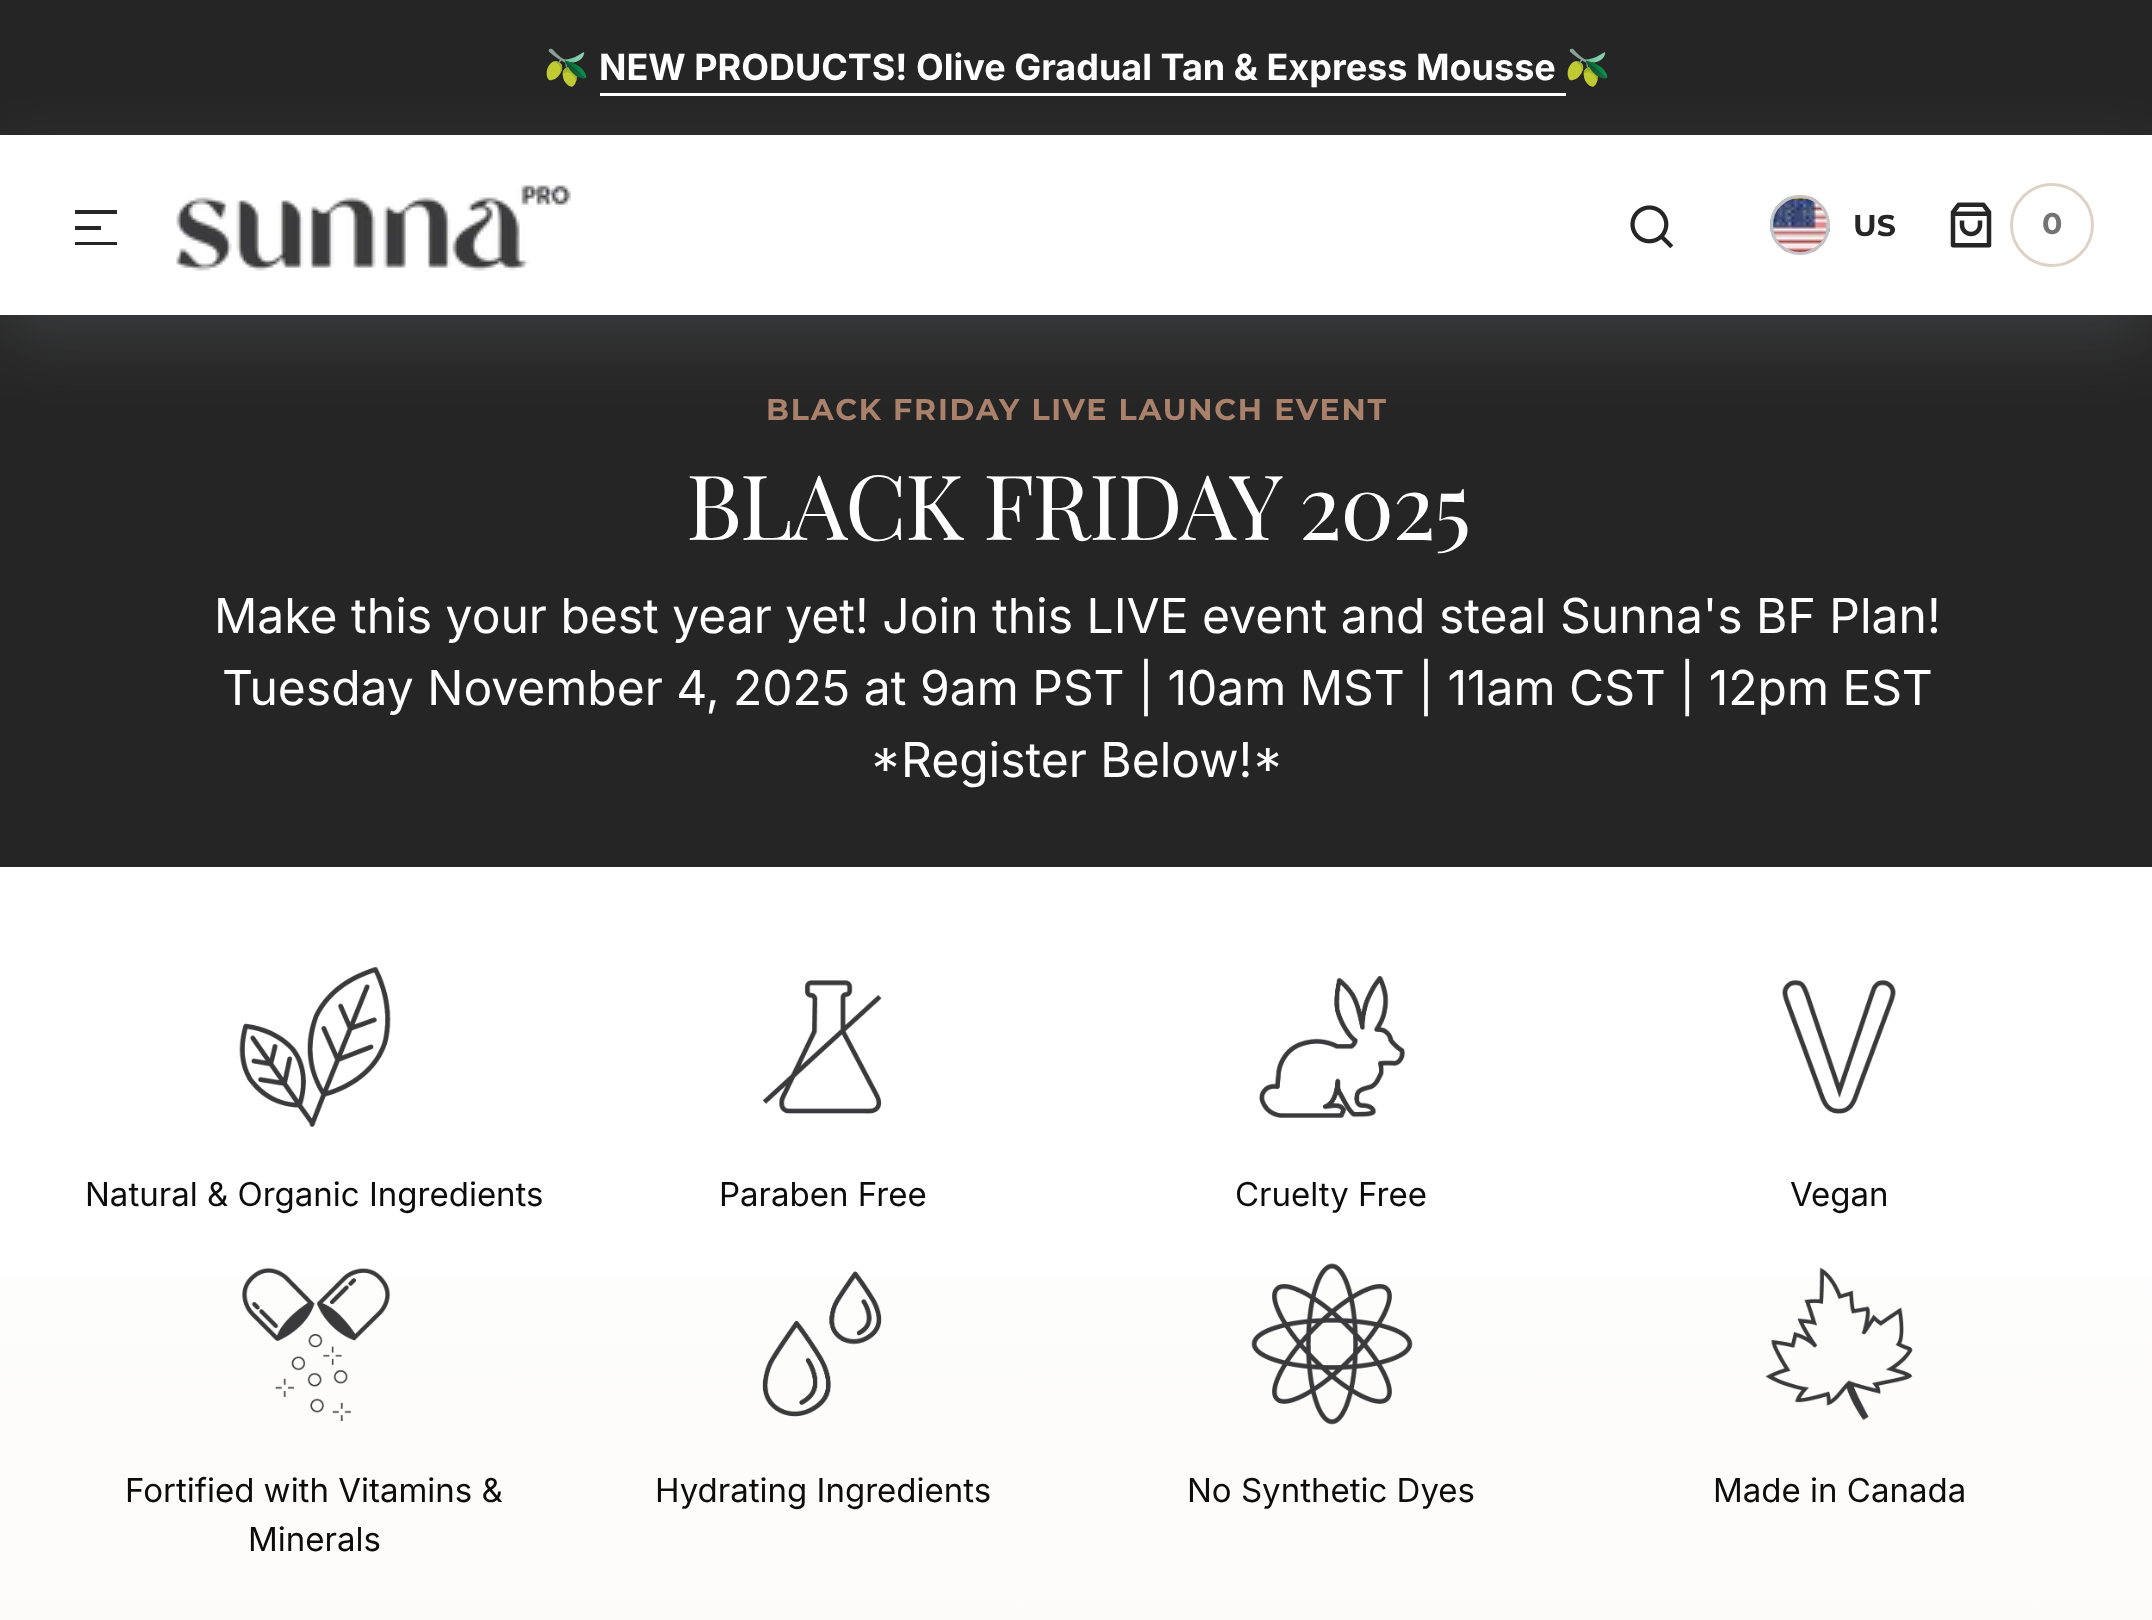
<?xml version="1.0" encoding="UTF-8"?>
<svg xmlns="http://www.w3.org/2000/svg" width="2152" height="1620">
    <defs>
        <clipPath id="clip1"><path d="M 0 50 H 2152 V 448 H 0 Z M 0 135 H 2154 V 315 H 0 Z" clip-rule="evenodd"/></clipPath>
        <filter id="blur1" x="-50%" y="-200%" width="200%" height="500%"><feGaussianBlur stdDeviation="36"/></filter>
        <linearGradient id="g1" gradientUnits="userSpaceOnUse" x1="1077" y1="867" x2="1077" y2="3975"><stop offset="0" stop-color="#FFFFFF"/><stop offset="1" stop-color="#F4F0EC"/></linearGradient>
    </defs>
    <rect width="100%" height="100%" fill="#FFFFFF"/>
    <rect x="0" y="0" width="2152" height="135" fill="#252525"/>
    <text x="544" y="80" font-family="Noto Color Emoji" font-size="36" fill="#FFFFFF">🫒</text>
    <text x="599" y="80" font-family="Inter" font-size="36" font-weight="700" fill="#FFFFFF">NEW PRODUCTS! Olive Gradual Tan &amp; Express Mousse</text>
    <rect x="600" y="93" width="966" height="3" fill="#FFFFFF"/>
    <text x="1565" y="80" font-family="Noto Color Emoji" font-size="36" fill="#FFFFFF">🫒</text>
    <rect x="0" y="315" width="2152" height="552" fill="#252525"/>
    <g clip-path="url(#clip1)">
        <rect x="0" y="159" width="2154" height="180" fill="#959DA5" fill-opacity="0.2" filter="url(#blur1)"/>
    </g>
    <rect x="75" y="210" width="42" height="4" fill="#262626"/>
    <rect x="75" y="226" width="26" height="4" fill="#262626"/>
    <rect x="75" y="242" width="42" height="3" fill="#262626"/>
    <image x="176" y="185" width="395" height="86" href="img_01.png"/>
    <image x="1630" y="205" width="44" height="44" href="img_02.png"/>
    <image x="1770" y="195" width="60" height="57" href="img_03.png"/>
    <circle cx="1800" cy="225" r="28.5" fill="none" stroke="#C4C4C4" stroke-width="3"/>
    <text x="1853" y="236" font-family="Montserrat" font-size="30" font-weight="700" fill="#262626">US</text>
    <image x="1950" y="202" width="42" height="46" href="img_04.png"/>
    <circle cx="2052" cy="225" r="40.5" fill="none" stroke="#DED2C7" stroke-width="3"/>
    <text x="2042" y="234" font-family="Montserrat" font-size="30" font-weight="700" fill="#747474">0</text>
    <text x="766" y="420" font-family="Montserrat" font-size="30" font-weight="700" letter-spacing="1.8" fill="#AA816A">BLACK FRIDAY LIVE LAUNCH EVENT</text>
    <text x="686" y="540" font-family="Playfair Display" font-size="90" letter-spacing="-1.75" fill="#FFFFFF">BLACK FRIDAY 2025</text>
    <text x="214" y="633" font-family="Inter" font-size="48" fill="#FFFFFF">Make this your best year yet! Join this LIVE event and steal Sunna's BF Plan!</text>
    <text x="222" y="705" font-family="Inter" font-size="48" fill="#FFFFFF">Tuesday November 4, 2025 at 9am PST | 10am MST | 11am CST | 12pm EST</text>
    <text x="870" y="777" font-family="Inter" font-size="48" fill="#FFFFFF">*Register Below!*</text>
    <rect x="0" y="1276" width="2152" height="344" fill="url(#g1)"/>
    <image x="239" y="966" width="152" height="161" href="img_05.png"/>
    <text x="85" y="1206" font-family="Inter" font-size="33" fill="#0C0C0C">Natural &amp; Organic Ingredients</text>
    <image x="762" y="980" width="120" height="134" href="img_06.png"/>
    <text x="719" y="1206" font-family="Inter" font-size="33" fill="#0C0C0C">Paraben Free</text>
    <image x="1259" y="976" width="146" height="142" href="img_07.png"/>
    <text x="1235" y="1206" font-family="Inter" font-size="33" fill="#0C0C0C">Cruelty Free</text>
    <image x="1782" y="980" width="114" height="134" href="img_08.png"/>
    <text x="1790" y="1206" font-family="Inter" font-size="33" fill="#0C0C0C">Vegan</text>
    <image x="242" y="1267" width="149" height="155" href="img_09.png"/>
    <text x="125" y="1502" font-family="Inter" font-size="33" fill="#0C0C0C">Fortified with Vitamins &amp;</text>
    <text x="248" y="1551" font-family="Inter" font-size="33" fill="#0C0C0C">Minerals</text>
    <image x="762" y="1271" width="120" height="146" href="img_10.png"/>
    <text x="655" y="1502" font-family="Inter" font-size="33" fill="#0C0C0C">Hydrating Ingredients</text>
    <image x="1251" y="1263" width="162" height="162" href="img_11.png"/>
    <text x="1187" y="1502" font-family="Inter" font-size="33" fill="#0C0C0C">No Synthetic Dyes</text>
    <image x="1765" y="1267" width="148" height="154" href="img_12.png"/>
    <text x="1713" y="1502" font-family="Inter" font-size="33" fill="#0C0C0C">Made in Canada</text>
</svg>
